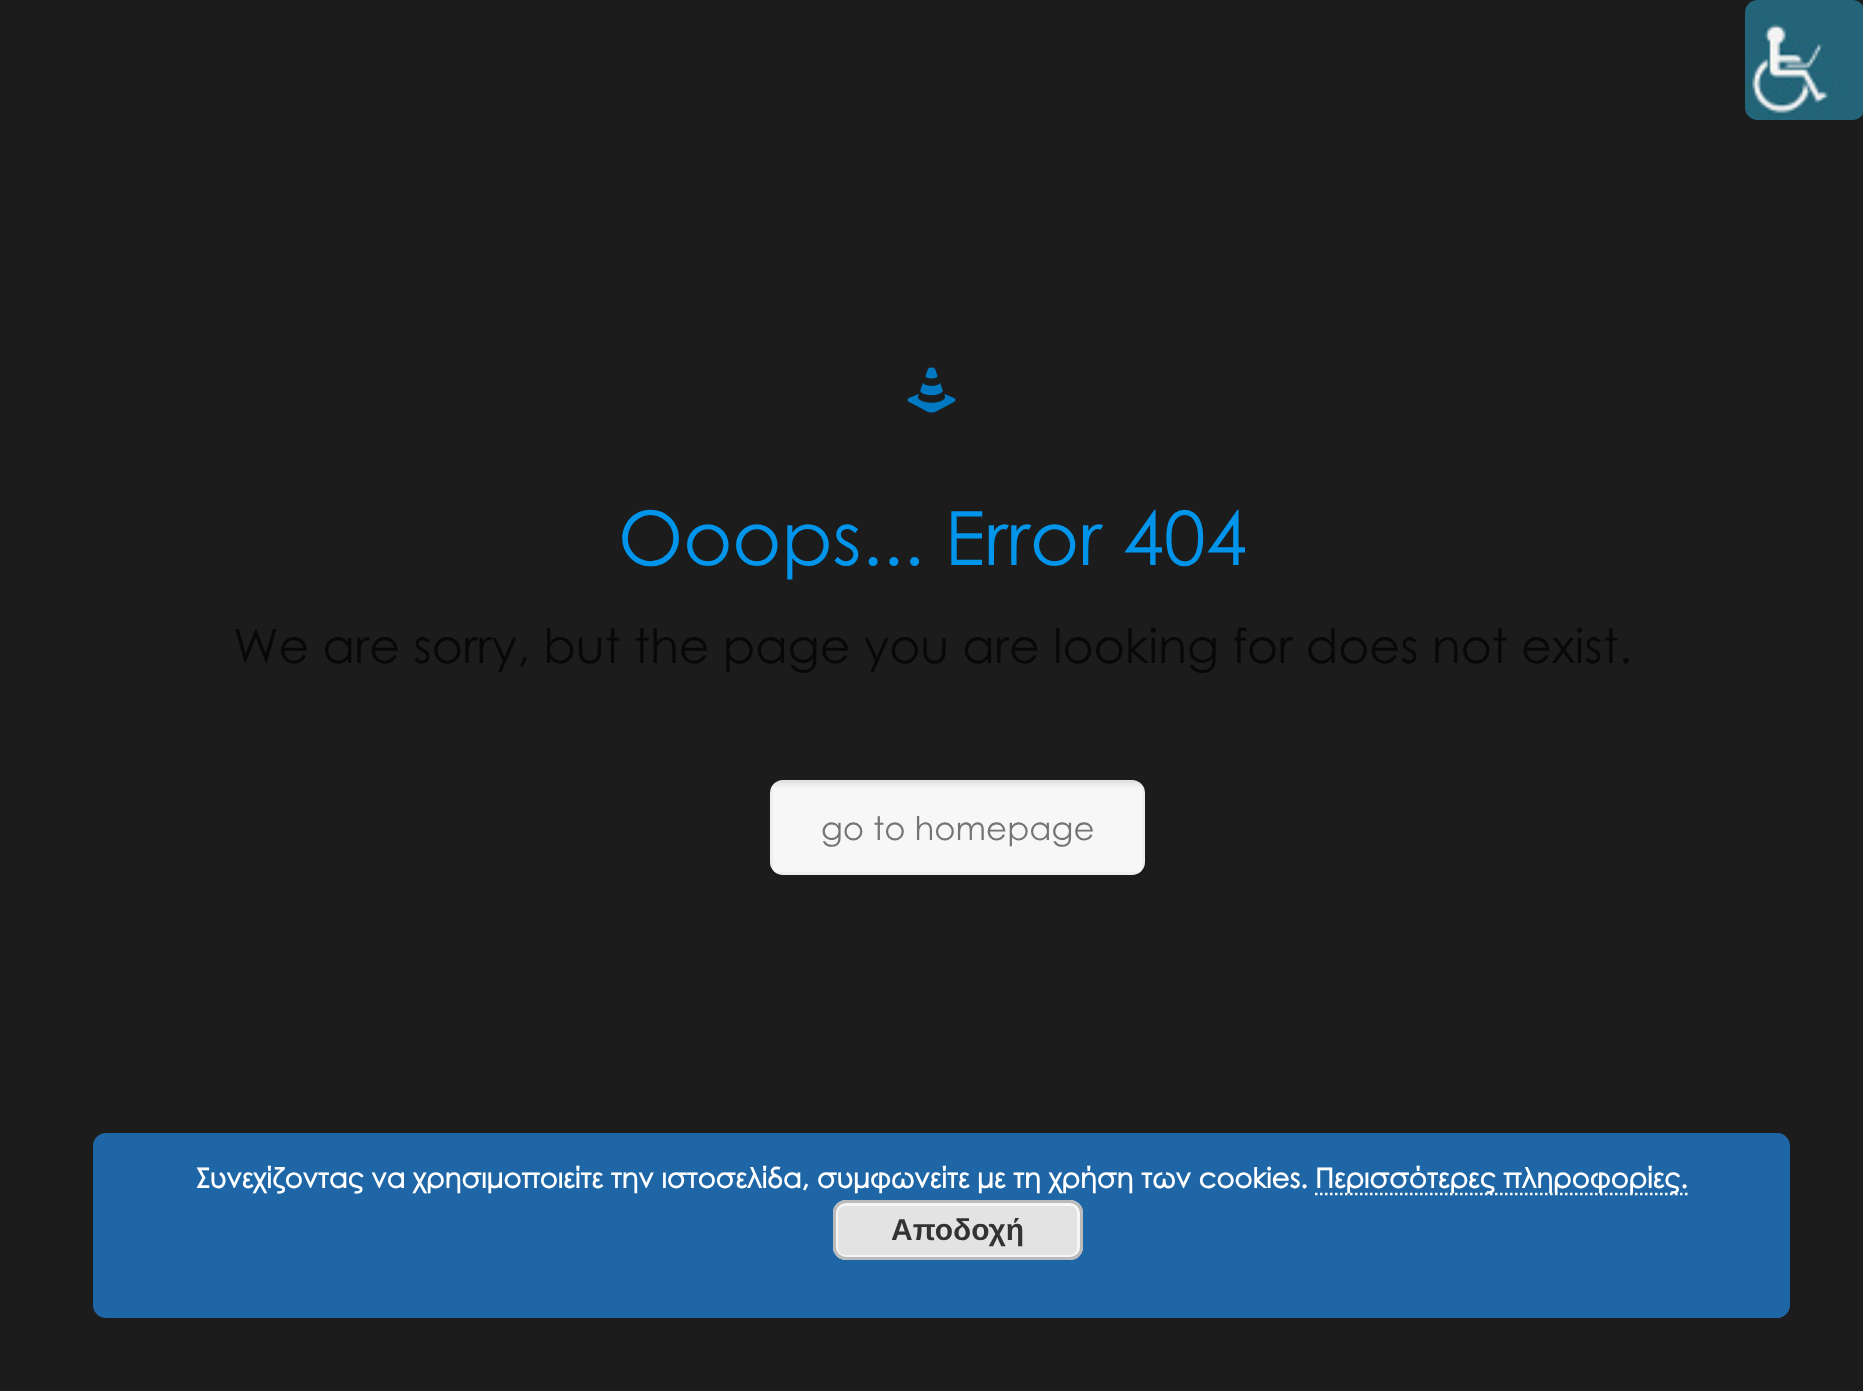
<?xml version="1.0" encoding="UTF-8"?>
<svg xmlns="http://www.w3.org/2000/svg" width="1863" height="1391">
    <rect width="100%" height="100%" fill="#1C1C1C"/>
    <image x="1745" y="0" width="118" height="120" href="img_01.png"/>
    <image x="907" y="367" width="49" height="46" href="img_02.png"/>
    <text x="618" y="565" font-family="Century Gothic" font-size="75" fill="#0095EB">Ooops... Error 404</text>
    <text x="233" y="663" font-family="Century Gothic" font-size="47.5" fill="#080808">We are sorry, but the page you are looking for does not exist.</text>
    <rect x="770" y="780" width="375" height="95" rx="13" fill="#F7F7F7"/>
    <image x="772" y="780" width="371" height="7" href="img_03.png"/>
    <rect x="771.5" y="781.5" width="372" height="92" fill="none" stroke="#000000" stroke-opacity="0.03" stroke-width="3"/>
    <text x="821" y="840" font-family="Century Gothic" font-size="32.5" fill="#747474">go to homepage</text>
    <rect x="93" y="1133" width="1697" height="185" rx="13" fill="#1E66A6"/>
    <text x="196" y="1188" font-family="Century Gothic" font-size="27.5" font-weight="700" fill="#FFFFFF">Συνεχίζοντας να χρησιμοποιείτε την ιστοσελίδα, συμφωνείτε με τη χρήση των cookies.</text>
    <path d="M 1315 1194 H 1687.5" fill="none" stroke="#FFFFFF" stroke-width="2.5" stroke-dasharray="2.5 2.5"/>
    <text x="1315" y="1188" font-family="Century Gothic" font-size="27.5" font-weight="700" fill="#FFFFFF">Περισσότερες πληροφορίες.</text>
    <rect x="833" y="1200" width="250" height="60" rx="13" fill="#E3E3E3"/>
    <rect x="836.5" y="1204.5" width="242" height="52" rx="8.5" fill="none" stroke="#F6F6F6" stroke-width="3"/>
    <rect x="834.5" y="1201.5" width="247" height="57" rx="11.5" fill="none" stroke="#BBBBBB" stroke-width="3"/>
    <text x="891" y="1240" font-family="Liberation Sans" font-size="30" font-weight="700" fill="#333333">Αποδοχή</text>
</svg>
